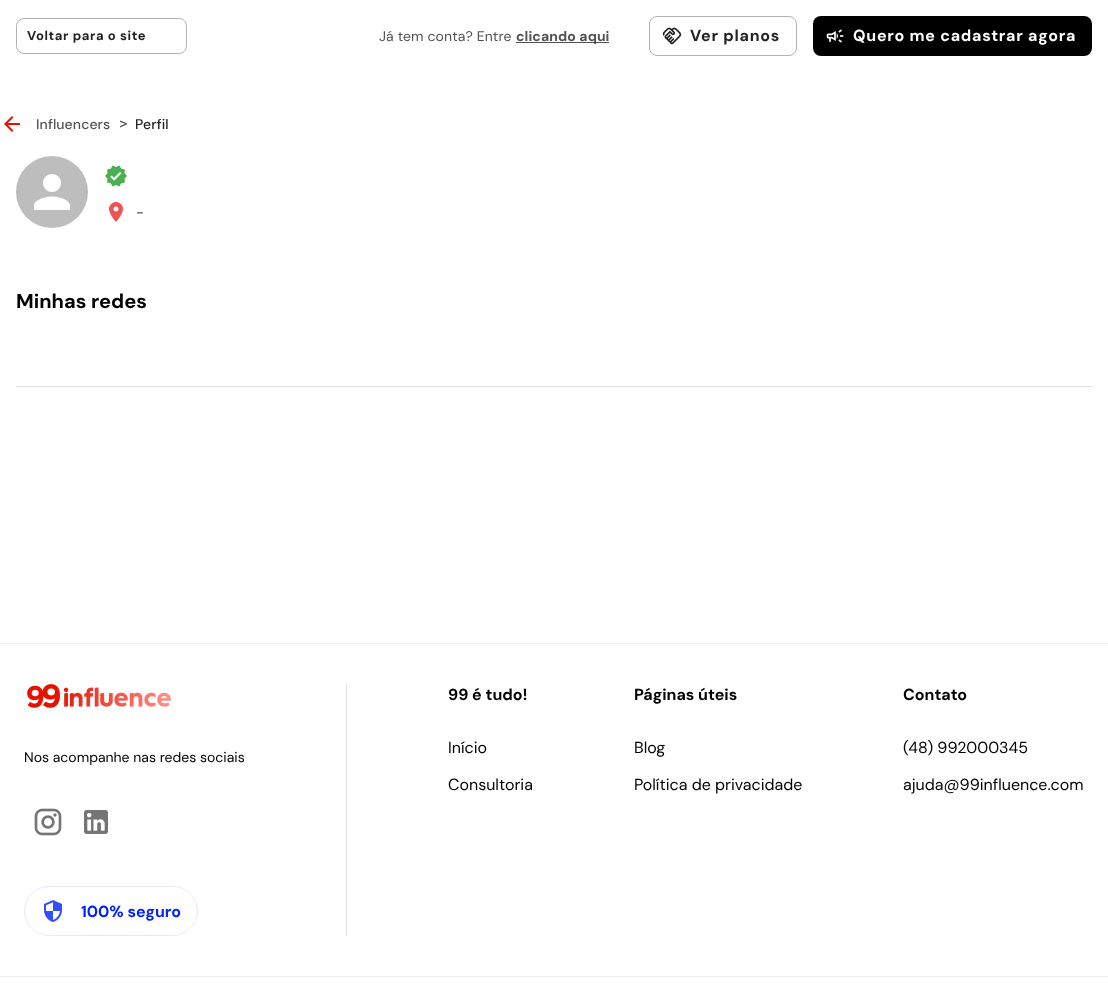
<?xml version="1.0" encoding="UTF-8"?>
<svg xmlns="http://www.w3.org/2000/svg" width="1108" height="1008">
    <rect width="100%" height="100%" fill="#FFFFFF"/>
    <rect x="16.5" y="18.5" width="170" height="35" rx="7.5" fill="none" stroke="#B3B3B3"/>
    <text x="27" y="40" font-family="DM Sans" font-size="13" font-weight="700" letter-spacing="0.6" fill="#212121">Voltar para o site</text>
    <text x="379" y="41" font-family="DM Sans" font-size="14" letter-spacing="0.1" fill="#525252">Já tem conta? Entre</text>
    <rect x="516" y="42" width="93" height="1" fill="#525252"/>
    <text x="516" y="41" font-family="DM Sans" font-size="14" font-weight="700" letter-spacing="0.1" fill="#525252">clicando aqui</text>
    <rect x="649.5" y="16.5" width="147" height="39" rx="7.5" fill="none" stroke="#B3B3B3"/>
    <image x="662" y="27" width="20" height="18" href="img_01.png"/>
    <text x="690" y="41" font-family="DM Sans" font-size="16" font-weight="700" letter-spacing="0.75" fill="#212121">Ver planos</text>
    <rect x="813" y="16" width="279" height="40" rx="8" fill="#000000"/>
    <image x="826" y="29" width="18" height="14" href="img_02.png"/>
    <text x="853" y="41" font-family="DM Sans" font-size="16" font-weight="700" letter-spacing="0.75" fill="#FFFFFF">Quero me cadastrar agora</text>
    <image x="4" y="116" width="16" height="16" href="img_03.png"/>
    <text x="36" y="129" font-family="DM Sans" font-size="14" font-weight="500" letter-spacing="0.1" fill="#525252">Influencers</text>
    <text x="119" y="129" font-family="Roboto" font-size="16" letter-spacing="0.1" fill="#525252">&gt;</text>
    <text x="135" y="129" font-family="DM Sans" font-size="14" font-weight="500" letter-spacing="0.1" fill="#212121">Perfil</text>
    <circle cx="52" cy="192" r="36" fill="#BDBDBD"/>
    <image x="34" y="174" width="36" height="36" href="img_04.png"/>
    <image x="105" y="165" width="22" height="22" href="img_05.png"/>
    <image x="109" y="202" width="14" height="20" href="img_06.png"/>
    <text x="136" y="217" font-family="DM Sans" font-size="14" font-weight="500" fill="#525252">-</text>
    <text x="16" y="308" font-family="DM Sans" font-size="20" font-weight="700" fill="#000000">Minhas redes</text>
    <rect x="16" y="386" width="1076" height="1" fill="#E0E0E0"/>
    <rect x="0" y="643" width="1108" height="1" fill="#EEEEEE"/>
    <rect x="0" y="976" width="1108" height="1" fill="#EEEEEE"/>
    <image x="27" y="684" width="144" height="24" href="img_07.png"/>
    <text x="24" y="762" font-family="DM Sans" font-size="14" fill="#000000">Nos acompanhe nas redes sociais</text>
    <image x="34" y="808" width="28" height="28" href="img_08.png"/>
    <image x="84" y="810" width="24" height="24" href="img_09.png"/>
    <rect x="24.5" y="886.5" width="173" height="49" rx="24.5" fill="none" stroke="#E6E9FF"/>
    <image x="44" y="900" width="18" height="22" href="img_10.png"/>
    <text x="81" y="917" font-family="DM Sans" font-size="16" font-weight="700" fill="#0020FF">100% seguro</text>
    <rect x="346" y="684" width="1" height="252" fill="#E0E0E0"/>
    <text x="448" y="700" font-family="DM Sans" font-size="16" font-weight="700" fill="#000000">99 é tudo!</text>
    <text x="448" y="753" font-family="DM Sans" font-size="16" fill="#000000">Início</text>
    <text x="448" y="790" font-family="DM Sans" font-size="16" fill="#000000">Consultoria</text>
    <text x="634" y="700" font-family="DM Sans" font-size="16" font-weight="700" fill="#000000">Páginas úteis</text>
    <text x="634" y="753" font-family="DM Sans" font-size="16" fill="#000000">Blog</text>
    <text x="634" y="790" font-family="DM Sans" font-size="16" fill="#000000">Política de privacidade</text>
    <text x="903" y="700" font-family="DM Sans" font-size="16" font-weight="700" fill="#000000">Contato</text>
    <text x="903" y="753" font-family="DM Sans" font-size="16" fill="#000000">(48) 992000345</text>
    <text x="903" y="790" font-family="DM Sans" font-size="16" fill="#000000">ajuda@99influence.com</text>
</svg>
